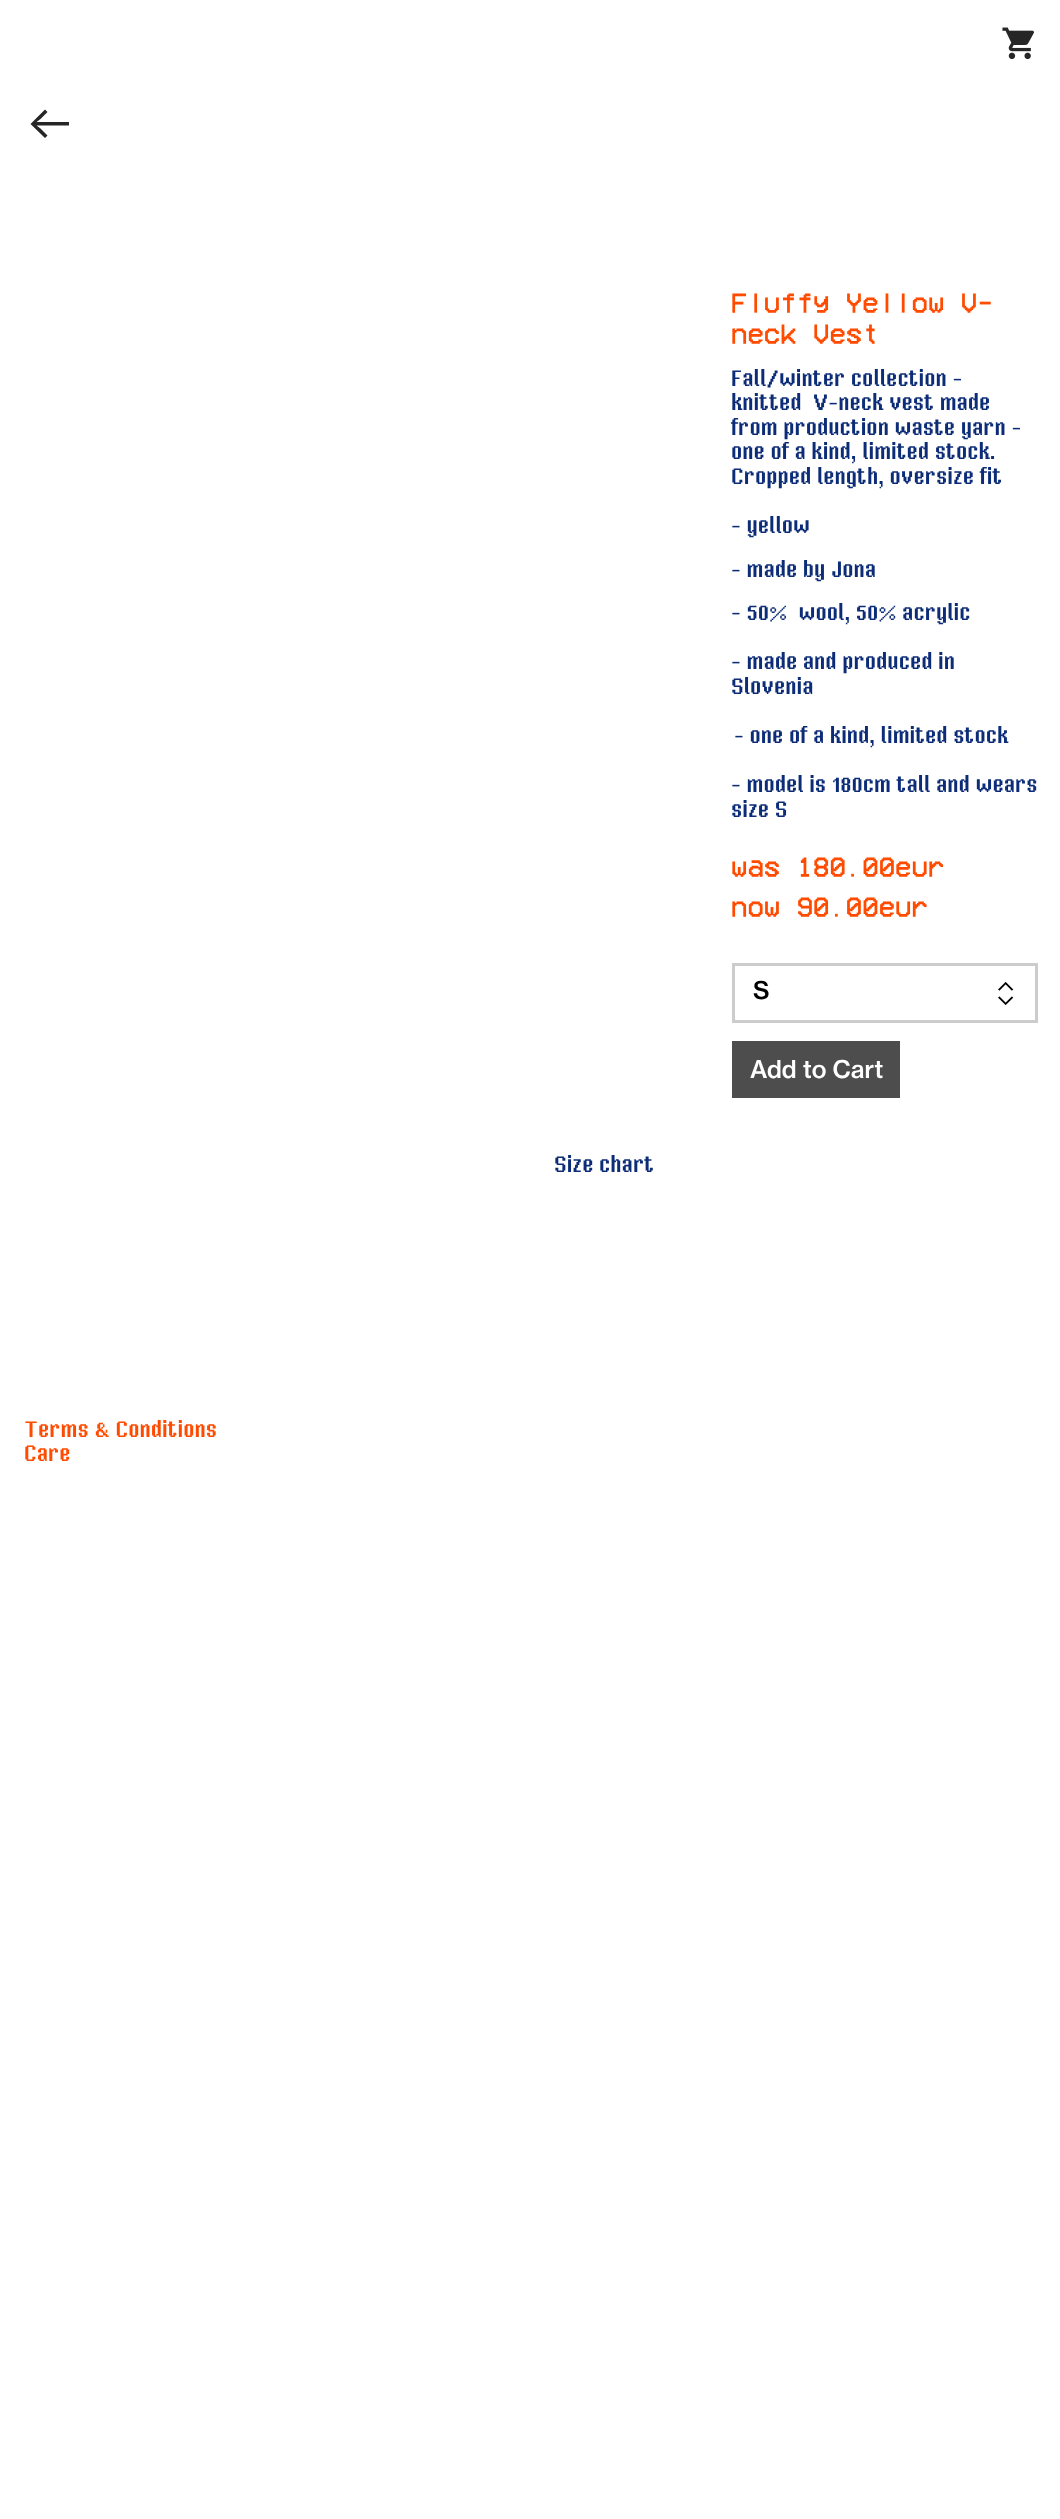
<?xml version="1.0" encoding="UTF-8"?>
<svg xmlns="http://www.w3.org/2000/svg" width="1060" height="2519">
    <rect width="100%" height="100%" fill="#FFFFFF"/>
    <image x="1002" y="27" width="32" height="33" href="img_01.png"/>
    <path d="M 69 122 H 36.5 L 40.5 119 L 47.5 112 L 45 109.5 L 30.5 124 L 45 138 L 47.5 135.5 L 40.5 128.5 L 36.5 125.5 H 41.5 H 69 Z" fill="#262626"/>
    <text font-family="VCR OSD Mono" font-size="28" fill="#FF4B00">
        <tspan x="731" y="314">Fluffy Yellow V-</tspan>
        <tspan x="731" y="345">neck Vest</tspan>
    </text>
    <text font-family="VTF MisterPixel" font-size="22.5" fill="#0C2C77" xml:space="preserve"><tspan x="731" y="386">Fall/winter collection -</tspan><tspan x="731" y="410">knitted  V-neck vest made</tspan><tspan x="731" y="435">from production waste yarn -</tspan><tspan x="731" y="459">one of a kind, limited stock.</tspan><tspan x="731" y="484">Cropped length, oversize fit</tspan></text>
    <text font-family="VTF MisterPixel" font-size="22.5" fill="#0C2C77" xml:space="preserve"><tspan x="731" y="533">- yellow</tspan><tspan x="731" y="577">- made by Jona</tspan><tspan x="731" y="620">- 50%  wool, 50% acrylic</tspan></text>
    <text font-family="VTF MisterPixel" font-size="22.5" fill="#0C2C77">
        <tspan x="731" y="669">- made and produced in</tspan>
        <tspan x="731" y="694">Slovenia</tspan>
    </text>
    <text x="734" y="743" font-family="VTF MisterPixel" font-size="22.5" fill="#0C2C77">- one of a kind, limited stock</text>
    <text font-family="VTF MisterPixel" font-size="22.5" fill="#0C2C77">
        <tspan x="731" y="792">- model is 180cm tall and wears</tspan>
        <tspan x="731" y="817">size S</tspan>
    </text>
    <text font-family="VCR OSD Mono" font-size="28" fill="#FF4B00">
        <tspan x="731" y="878">was 180.00eur</tspan>
        <tspan x="731" y="918">now 90.00eur</tspan>
    </text>
    <image x="998" y="982" width="16" height="23" href="img_02.png"/>
    <rect x="733.5" y="964.5" width="303" height="57" fill="none" stroke="#CCCCCC" stroke-width="3"/>
    <text x="753" y="999" font-family="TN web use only" font-size="24.25" font-weight="500" fill="#000000">S</text>
    <rect x="732" y="1041" width="168" height="57" fill="#4D4D4D"/>
    <text x="750" y="1078" font-family="TN web use only" font-size="24.25" font-weight="500" fill="#FFFFFF">Add to Cart</text>
    <text x="554" y="1172" font-family="VTF MisterPixel" font-size="22.5" fill="#0C2C77">Size chart</text>
    <text font-family="VTF MisterPixel" font-size="22.5" fill="#FF4B00">
        <tspan x="24" y="1437">Terms &amp; Conditions</tspan>
        <tspan x="24" y="1461">Care</tspan>
    </text>
</svg>
